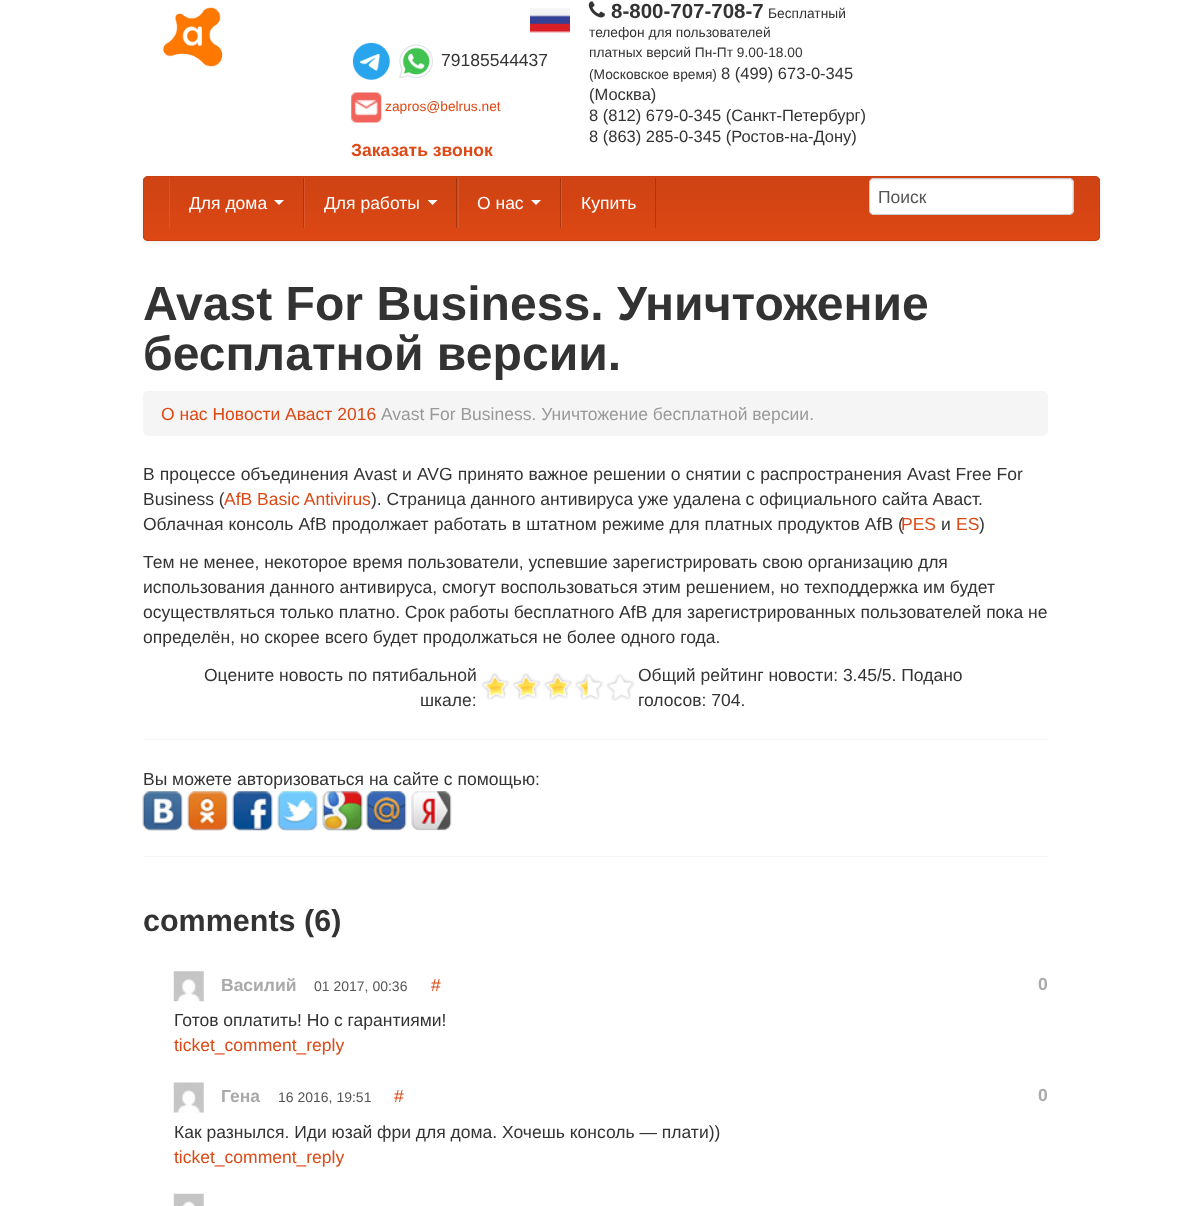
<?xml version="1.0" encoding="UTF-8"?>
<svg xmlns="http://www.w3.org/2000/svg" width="1189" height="1206">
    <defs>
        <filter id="blur1" x="-50%" y="-200%" width="200%" height="500%"><feGaussianBlur stdDeviation="2.5"/></filter>
        <clipPath id="clip1"><rect x="143" y="176" width="957" height="65" rx="5"/></clipPath>
        <linearGradient id="g1" gradientUnits="userSpaceOnUse" x1="621" y1="177" x2="621" y2="240"><stop offset="0" stop-color="#CE4213"/><stop offset="1" stop-color="#DD4814"/></linearGradient>
        <linearGradient id="g2" gradientUnits="userSpaceOnUse" x1="621" y1="177" x2="621" y2="240"><stop offset="0" stop-color="#D3552B"/><stop offset="1" stop-color="#E05A2C"/></linearGradient>
        <linearGradient id="g3" gradientUnits="userSpaceOnUse" x1="621" y1="177" x2="621" y2="240"><stop offset="0" stop-color="#A5350F"/><stop offset="1" stop-color="#B13A10"/></linearGradient>
    </defs>
    <rect width="100%" height="100%" fill="#FFFFFF"/>
    <image x="163" y="7" width="60" height="60" href="img_01.png"/>
    <image x="530" y="8" width="40" height="25" href="img_02.png"/>
    <image x="352" y="42" width="38" height="38" href="img_03.png"/>
    <image x="399" y="44" width="34" height="34" href="img_04.png"/>
    <text x="441" y="66" font-family="Liberation Sans" font-size="17.5" fill="#333333">79185544437</text>
    <image x="351" y="92" width="31" height="31" href="img_05.png"/>
    <text x="385" y="111" font-family="Liberation Sans" font-size="13.75" fill="#DD4814">zapros@belrus.net</text>
    <text x="351" y="156" font-family="Liberation Sans" font-size="17.5" font-weight="700" fill="#DD4814">Заказать звонок</text>
    <image x="588" y="1" width="17" height="17" href="img_06.png"/>
    <text x="611" y="18" font-family="Liberation Sans" font-size="20.5" font-weight="700" fill="#333333">8-800-707-708-7</text>
    <text x="768" y="18" font-family="Liberation Sans" font-size="13.75" fill="#333333">Бесплатный</text>
    <text font-family="Liberation Sans" font-size="13.75" fill="#333333">
        <tspan x="589" y="37">телефон для пользователей</tspan>
        <tspan x="589" y="57">платных версий Пн-Пт 9.00-18.00</tspan>
        <tspan x="589" y="79">(Московское время)</tspan>
    </text>
    <text x="721" y="79" font-family="Liberation Sans" font-size="16.5" fill="#333333">8 (499) 673-0-345</text>
    <text font-family="Liberation Sans" font-size="16.5" fill="#333333">
        <tspan x="589" y="100">(Москва)</tspan>
        <tspan x="589" y="121">8 (812) 679-0-345 (Санкт-Петербург)</tspan>
        <tspan x="589" y="142">8 (863) 285-0-345 (Ростов-на-Дону)</tspan>
    </text>
    <rect x="143" y="178" width="957" height="65" rx="5" fill="#000000" fill-opacity="0.07" filter="url(#blur1)"/>
    <rect x="143" y="176" width="957" height="65" rx="5" fill="#D44413"/>
    <g clip-path="url(#clip1)">
        <rect x="143" y="178" width="957" height="62" fill="url(#g1)"/>
    </g>
    <rect x="458" y="178" width="1" height="50" fill="url(#g2)"/>
    <rect x="560" y="178" width="1" height="50" fill="url(#g3)"/>
    <rect x="304" y="178" width="1" height="50" fill="url(#g2)"/>
    <rect x="456" y="178" width="1" height="50" fill="url(#g3)"/>
    <rect x="169" y="178" width="1" height="50" fill="url(#g2)"/>
    <rect x="303" y="178" width="1" height="50" fill="url(#g3)"/>
    <rect x="561" y="178" width="1" height="50" fill="url(#g2)"/>
    <rect x="655" y="178" width="1" height="50" fill="url(#g3)"/>
    <rect x="143.5" y="176.5" width="956" height="64" rx="4.5" fill="none" stroke="#C64012"/>
    <text x="189" y="209" font-family="Liberation Sans" font-size="17.5" fill="#FFFFFF">Для дома</text>
    <path d="M 274 200 H 284 L 279 205 Z" fill="#FFFFFF"/>
    <text x="324" y="209" font-family="Liberation Sans" font-size="17.5" fill="#FFFFFF">Для работы</text>
    <path d="M 427.5 200 H 437.5 L 432.5 205 Z" fill="#FFFFFF"/>
    <text x="477" y="209" font-family="Liberation Sans" font-size="17.5" fill="#FFFFFF">О нас</text>
    <path d="M 531 200 H 541 L 536 205 Z" fill="#FFFFFF"/>
    <text x="581" y="209" font-family="Liberation Sans" font-size="17.5" fill="#FFFFFF">Купить</text>
    <rect x="869" y="178" width="205" height="37" rx="5" fill="#FFFFFF"/>
    <path d="M 874 180 H 1069 C 1074 180 1072 191 1072 193 V 213 C 1072 212 1073 211 1073 210 V 183 C 1073 181 1071 179 1069 179 H 874 C 872 179 870 181 870 183 V 184 C 870 182 872 180 874 180 Z" fill="#ECECEC"/>
    <rect x="869.5" y="178.5" width="204" height="36" rx="4.5" fill="none" stroke="#CCCCCC"/>
    <text x="878" y="203" font-family="Liberation Sans" font-size="17.5" fill="#555555">Поиск</text>
    <text font-family="Liberation Sans" font-size="48.1" font-weight="700" fill="#333333">
        <tspan x="143" y="320">Avast For Business. Уничтожение</tspan>
        <tspan x="143" y="370">бесплатной версии.</tspan>
    </text>
    <rect x="143" y="391" width="905" height="45" rx="5" fill="#F5F5F5"/>
    <text x="161" y="420" font-family="Liberation Sans" font-size="17.5" fill="#DD4814">О нас Новости Аваст 2016</text>
    <text x="381" y="420" font-family="Liberation Sans" font-size="17.5" fill="#999999">Avast For Business. Уничтожение бесплатной версии.</text>
    <text font-family="Liberation Sans" font-size="17.5" fill="#333333">
        <tspan x="143" y="480" word-spacing="0.25">В процессе объединения Avast и AVG принято важное решении о снятии с распространения Avast Free For</tspan>
        <tspan x="143" y="505">Business (</tspan>
    </text>
    <text x="224" y="505" font-family="Liberation Sans" font-size="17.5" fill="#DD4814">AfB Basic Antivirus</text>
    <text x="371" y="505" font-family="Liberation Sans" font-size="17.5" fill="#333333">). Страница данного антивируса уже удалена с официального сайта Аваст.</text>
    <text x="143" y="530" word-spacing="0.2" font-family="Liberation Sans" font-size="17.5" fill="#333333">Облачная консоль AfB продолжает работать в штатном режиме для платных продуктов AfB (</text>
    <text x="901" y="530" font-family="Liberation Sans" font-size="17.5" fill="#DD4814">PES</text>
    <text x="941" y="530" font-family="Liberation Sans" font-size="17.5" fill="#333333">и</text>
    <text x="956" y="530" font-family="Liberation Sans" font-size="17.5" fill="#DD4814">ES</text>
    <text x="979" y="530" font-family="Liberation Sans" font-size="17.5" fill="#333333">)</text>
    <text font-family="Liberation Sans" font-size="17.5" fill="#333333">
        <tspan x="143" y="568">Тем не менее, некоторое время пользователи, успевшие зарегистрировать свою организацию для</tspan>
        <tspan x="143" y="593">использования данного антивируса, смогут воспользоваться этим решением, но техподдержка им будет</tspan>
        <tspan x="143" y="618">осуществляться только платно. Срок работы бесплатного AfB для зарегистрированных пользователей пока не</tspan>
        <tspan x="143" y="643">определён, но скорее всего будет продолжаться не более одного года.</tspan>
    </text>
    <text x="204" y="681" font-family="Liberation Sans" font-size="17.5" fill="#333333">Оцените новость по пятибальной</text>
    <text x="420" y="706" font-family="Liberation Sans" font-size="17.5" fill="#333333">шкале:</text>
    <image x="481" y="674" width="154" height="27" href="img_07.png"/>
    <image x="482" y="673" width="106" height="28" href="img_08.png"/>
    <text font-family="Liberation Sans" font-size="17.5" fill="#333333">
        <tspan x="638" y="681">Общий рейтинг новости: 3.45/5. Подано</tspan>
        <tspan x="638" y="706">голосов: 704.</tspan>
    </text>
    <rect x="143" y="739" width="905" height="1" fill="#F5F5F5"/>
    <text x="143" y="785" font-family="Liberation Sans" font-size="17.5" fill="#333333">Вы можете авторизоваться на сайте с помощью:</text>
    <image x="142" y="791" width="41" height="40" href="img_09.png"/>
    <image x="187" y="791" width="41" height="40" href="img_10.png"/>
    <image x="232" y="791" width="41" height="40" href="img_11.png"/>
    <image x="277" y="791" width="41" height="40" href="img_12.png"/>
    <image x="322" y="791" width="41" height="40" href="img_13.png"/>
    <image x="366" y="791" width="41" height="40" href="img_14.png"/>
    <image x="411" y="791" width="41" height="40" href="img_15.png"/>
    <rect x="143" y="856" width="905" height="1" fill="#F5F5F5"/>
    <text x="143" y="931" font-family="Liberation Sans" font-size="30.5" font-weight="700" fill="#333333">comments (6)</text>
    <image x="173" y="971" width="31" height="31" href="img_16.png"/>
    <text x="221" y="991" font-family="Liberation Sans" font-size="17.5" font-weight="700" fill="#AAAAAA">Василий</text>
    <text x="314" y="991" font-family="Liberation Sans" font-size="14" fill="#555555">01 2017, 00:36</text>
    <text x="431" y="991" font-family="Liberation Sans" font-size="17.5" fill="#DD4814">#</text>
    <text x="1038" y="990" font-family="Liberation Sans" font-size="17.5" font-weight="700" fill="#AAAAAA">0</text>
    <text x="174" y="1026" font-family="Liberation Sans" font-size="17.5" fill="#333333">Готов оплатить! Но с гарантиями!</text>
    <text x="174" y="1051" font-family="Liberation Sans" font-size="17.5" fill="#DD4814">ticket_comment_reply</text>
    <image x="173" y="1082" width="31" height="31" href="img_17.png"/>
    <text x="221" y="1102" font-family="Liberation Sans" font-size="17.5" font-weight="700" fill="#AAAAAA">Гена</text>
    <text x="278" y="1102" font-family="Liberation Sans" font-size="14" fill="#555555">16 2016, 19:51</text>
    <text x="394" y="1102" font-family="Liberation Sans" font-size="17.5" fill="#DD4814">#</text>
    <text x="1038" y="1101" font-family="Liberation Sans" font-size="17.5" font-weight="700" fill="#AAAAAA">0</text>
    <text x="174" y="1138" font-family="Liberation Sans" font-size="17.5" fill="#333333">Как разнылся. Иди юзай фри для дома. Хочешь консоль — плати))</text>
    <text x="174" y="1163" font-family="Liberation Sans" font-size="17.5" fill="#DD4814">ticket_comment_reply</text>
    <image x="173" y="1193" width="31" height="13" href="img_18.png"/>
</svg>
